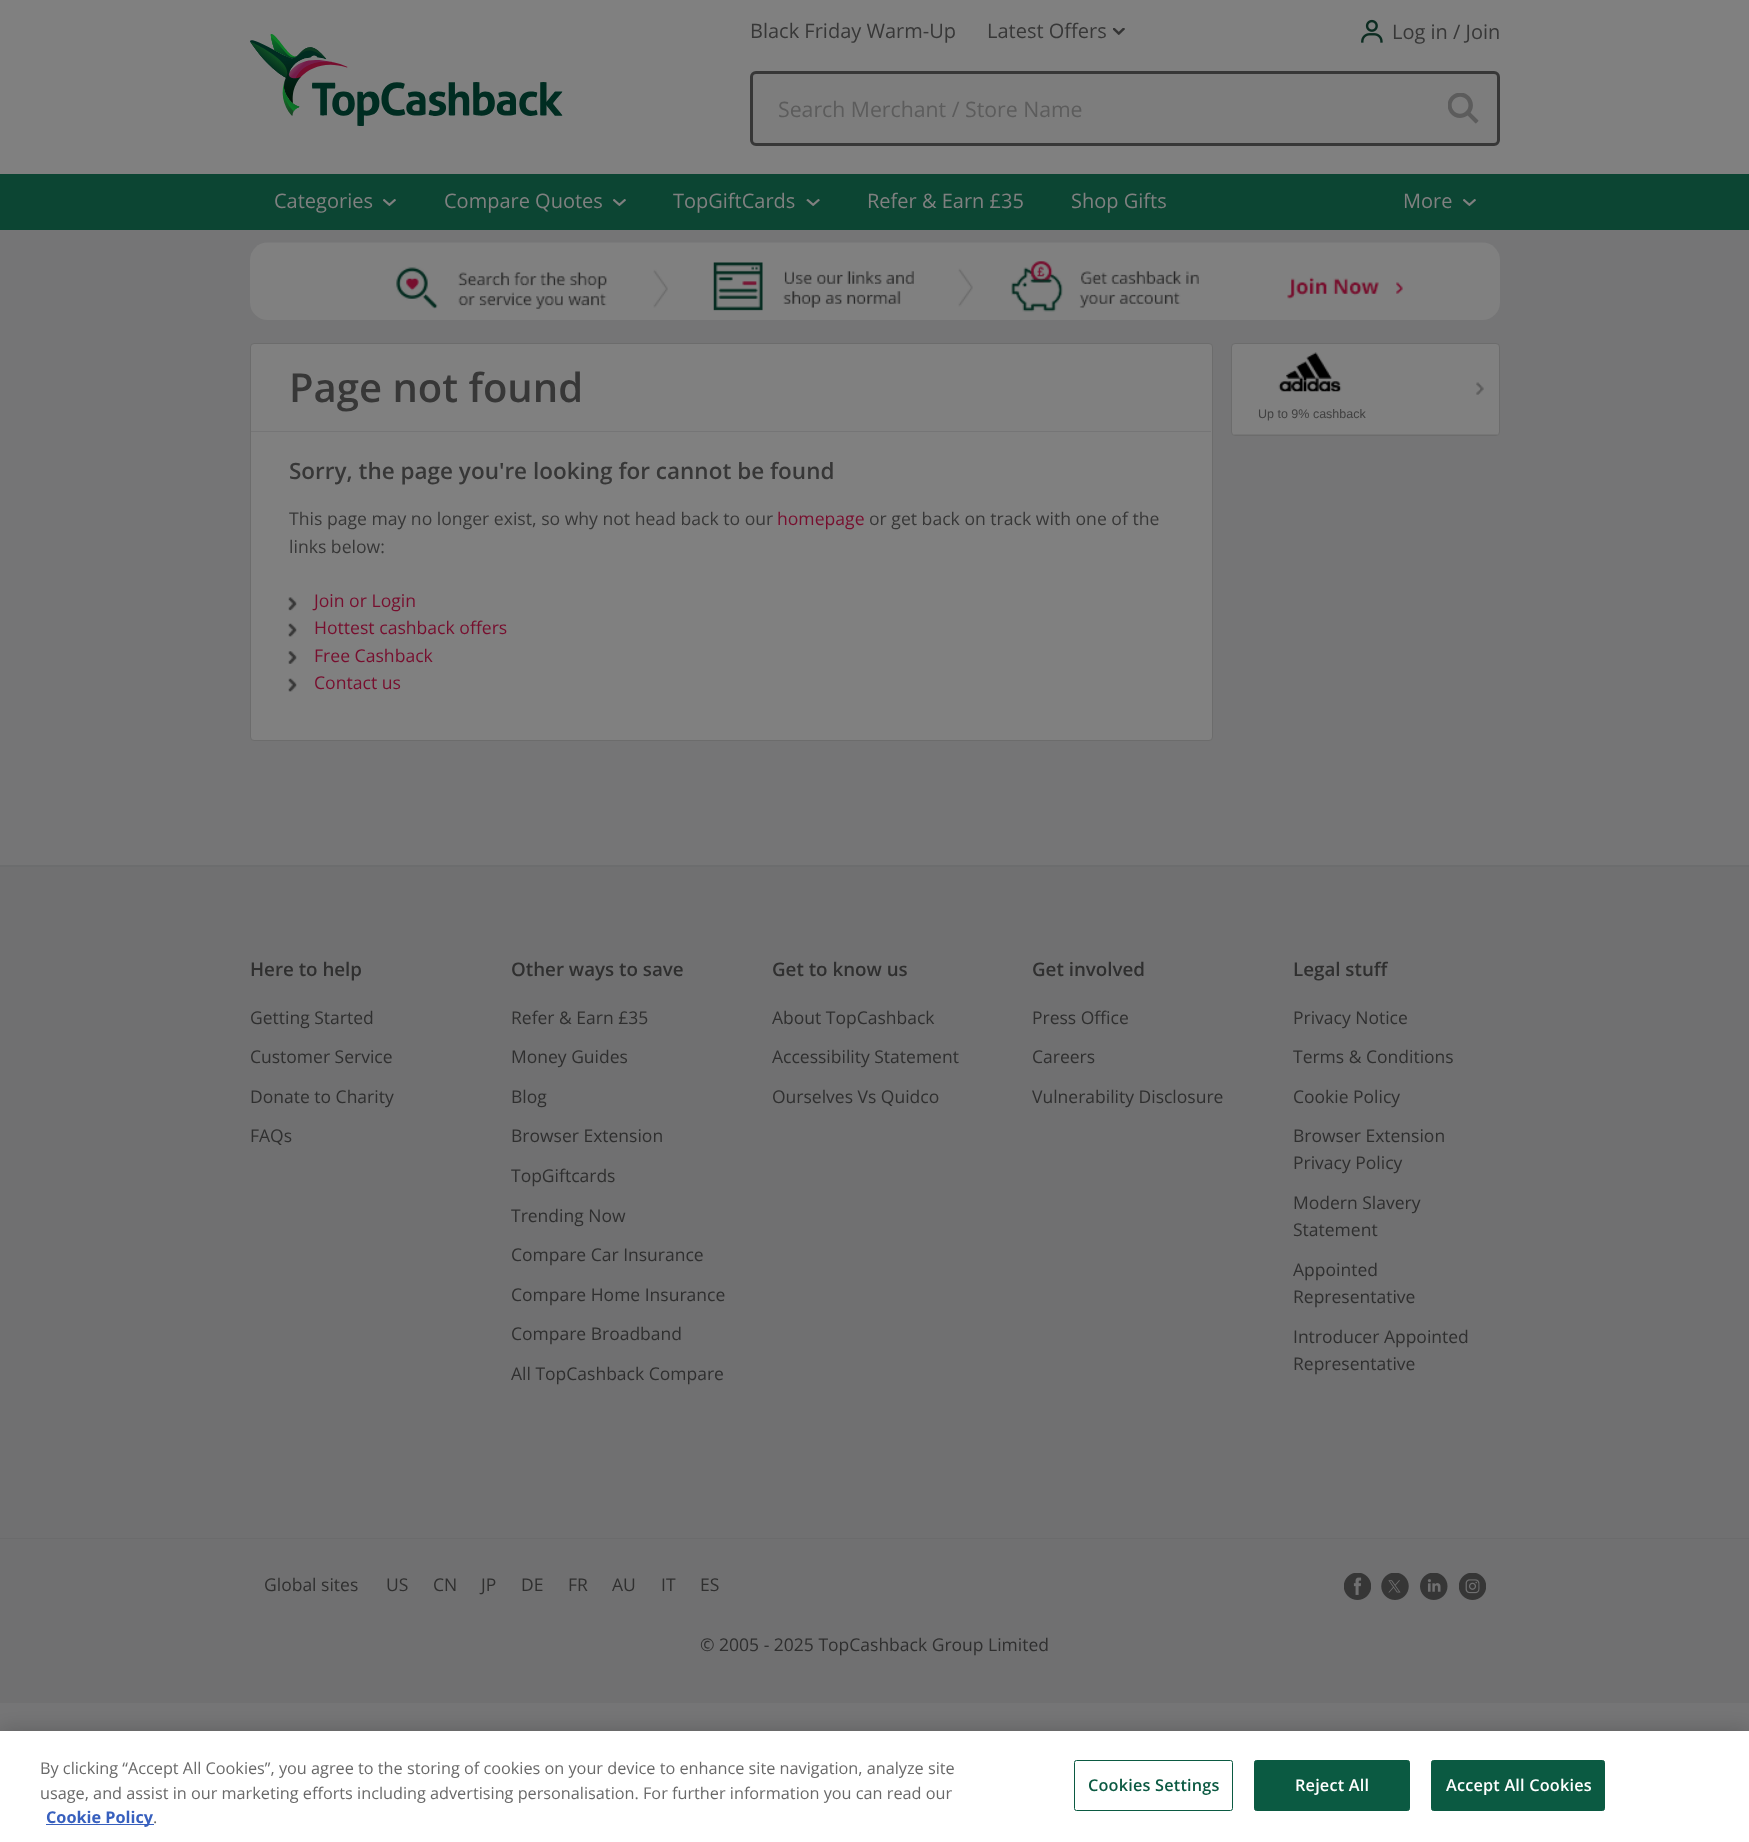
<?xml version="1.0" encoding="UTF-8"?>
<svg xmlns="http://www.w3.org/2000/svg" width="1749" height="1842">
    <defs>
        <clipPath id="clip1"><rect x="1233" y="344" width="266" height="91" rx="2.5"/></clipPath>
        <filter id="blur1" x="-50%" y="-200%" width="200%" height="500%"><feGaussianBlur stdDeviation="11"/></filter>
    </defs>
    <rect width="100%" height="100%" fill="#757576"/>
    <rect x="0" y="0" width="1749" height="174" fill="#808080"/>
    <image x="250" y="34" width="313" height="92" href="img_01.png"/>
    <text x="750" y="38" font-family="Open Sans" font-size="20" fill="#373737">Black Friday Warm-Up</text>
    <text x="987" y="38" font-family="Open Sans" font-size="20" fill="#373737">Latest Offers</text>
    <image x="1113" y="28" width="12" height="7" href="img_02.png"/>
    <image x="1361" y="19" width="22" height="24" href="img_03.png"/>
    <text x="1392" y="39" font-family="Open Sans" font-size="20" fill="#373737">Log in / Join</text>
    <rect x="750" y="71" width="750" height="75" rx="6" fill="#7D7D7D"/>
    <image x="1448" y="93" width="31" height="31" href="img_04.png"/>
    <rect x="751.5" y="72.5" width="747" height="72" rx="4.5" fill="none" stroke="#373737" stroke-width="3"/>
    <text x="778" y="117" font-family="Open Sans" font-size="21.25" fill="#5C5C5C">Search Merchant / Store Name</text>
    <rect x="0" y="174" width="1749" height="56" fill="#0C4533"/>
    <text x="274" y="208" font-family="Open Sans" font-size="20" fill="#808080">Categories</text>
    <image x="383" y="199" width="13" height="7" href="img_05.png"/>
    <text x="444" y="208" font-family="Open Sans" font-size="20" fill="#808080">Compare Quotes</text>
    <image x="613" y="199" width="13" height="7" href="img_05.png"/>
    <text x="673" y="208" font-family="Open Sans" font-size="20" fill="#808080">TopGiftCards</text>
    <image x="806" y="199" width="14" height="7" href="img_06.png"/>
    <text x="867" y="208" font-family="Open Sans" font-size="20" fill="#808080">Refer &amp; Earn £35</text>
    <text x="1071" y="208" font-family="Open Sans" font-size="20" fill="#808080">Shop Gifts</text>
    <text x="1403" y="208" font-family="Open Sans" font-size="20" fill="#808080">More</text>
    <image x="1463" y="199" width="13" height="7" href="img_05.png"/>
    <image x="250" y="242" width="1250" height="78" href="img_07.png"/>
    <rect x="250.5" y="343.5" width="962" height="397" rx="3.5" fill="#808080" stroke="#6C6C6C"/>
    <rect x="251" y="431" width="960" height="1" fill="#757576"/>
    <text x="289" y="402" font-family="Open Sans" font-size="40" font-weight="600" fill="#373737">Page not found</text>
    <text x="289" y="479" font-family="Open Sans" font-size="22.5" font-weight="600" fill="#373737">Sorry, the page you're looking for cannot be found</text>
    <text x="289" y="525" font-family="Open Sans" font-size="17.6" fill="#373737">This page may no longer exist, so why not head back to our</text>
    <text x="777" y="525" font-family="Open Sans" font-size="17.6" fill="#770E2E">homepage</text>
    <text x="869" y="525" font-family="Open Sans" font-size="17.6" fill="#373737">or get back on track with one of the</text>
    <text x="289" y="553" font-family="Open Sans" font-size="17.6" fill="#373737">links below:</text>
    <image x="288" y="597" width="9" height="14" href="img_08.png"/>
    <text x="314" y="607" font-family="Open Sans" font-size="17.6" fill="#770E2E">Join or Login</text>
    <image x="288" y="623" width="9" height="14" href="img_09.png"/>
    <text x="314" y="634" font-family="Open Sans" font-size="17.6" fill="#770E2E">Hottest cashback offers</text>
    <image x="288" y="651" width="9" height="13" href="img_10.png"/>
    <text x="314" y="662" font-family="Open Sans" font-size="17.6" fill="#770E2E">Free Cashback</text>
    <image x="288" y="678" width="9" height="14" href="img_09.png"/>
    <text x="314" y="689" font-family="Open Sans" font-size="17.6" fill="#770E2E">Contact us</text>
    <rect x="1231.5" y="343.5" width="268" height="92" rx="3.5" fill="#808080" stroke="#6C6C6C"/>
    <image x="1476" y="382" width="8" height="13" href="img_11.png"/>
    <g clip-path="url(#clip1)">
        <rect x="1233" y="434" width="266" height="1" fill="#767676"/>
    </g>
    <image x="1278" y="352" width="64" height="40" href="img_12.png"/>
    <text x="1258" y="418" font-family="Liberation Sans" font-size="12.5" fill="#404040">Up to 9% cashback</text>
    <rect x="0" y="865" width="1749" height="2" fill="#6C6D6E"/>
    <rect x="0" y="867" width="1749" height="671" fill="#707071"/>
    <text x="250" y="976" font-family="Open Sans" font-size="18.75" font-weight="600" fill="#2F2F2F">Here to help</text>
    <text x="250" y="1024" font-family="Open Sans" font-size="17.5" fill="#2F2F2F">Getting Started</text>
    <text x="250" y="1063" font-family="Open Sans" font-size="17.5" fill="#2F2F2F">Customer Service</text>
    <text x="250" y="1103" font-family="Open Sans" font-size="17.5" fill="#2F2F2F">Donate to Charity</text>
    <text x="250" y="1142" font-family="Open Sans" font-size="17.5" fill="#2F2F2F">FAQs</text>
    <text x="511" y="976" font-family="Open Sans" font-size="18.75" font-weight="600" fill="#2F2F2F">Other ways to save</text>
    <text x="511" y="1024" font-family="Open Sans" font-size="17.5" fill="#2F2F2F">Refer &amp; Earn £35</text>
    <text x="511" y="1063" font-family="Open Sans" font-size="17.5" fill="#2F2F2F">Money Guides</text>
    <text x="511" y="1103" font-family="Open Sans" font-size="17.5" fill="#2F2F2F">Blog</text>
    <text x="511" y="1142" font-family="Open Sans" font-size="17.5" fill="#2F2F2F">Browser Extension</text>
    <text x="511" y="1182" font-family="Open Sans" font-size="17.5" fill="#2F2F2F">TopGiftcards</text>
    <text x="511" y="1222" font-family="Open Sans" font-size="17.5" fill="#2F2F2F">Trending Now</text>
    <text x="511" y="1261" font-family="Open Sans" font-size="17.5" fill="#2F2F2F">Compare Car Insurance</text>
    <text x="511" y="1301" font-family="Open Sans" font-size="17.5" fill="#2F2F2F">Compare Home Insurance</text>
    <text x="511" y="1340" font-family="Open Sans" font-size="17.5" fill="#2F2F2F">Compare Broadband</text>
    <text x="511" y="1380" font-family="Open Sans" font-size="17.5" fill="#2F2F2F">All TopCashback Compare</text>
    <text x="772" y="976" font-family="Open Sans" font-size="18.75" font-weight="600" fill="#2F2F2F">Get to know us</text>
    <text x="772" y="1024" font-family="Open Sans" font-size="17.5" fill="#2F2F2F">About TopCashback</text>
    <text x="772" y="1063" font-family="Open Sans" font-size="17.5" fill="#2F2F2F">Accessibility Statement</text>
    <text x="772" y="1103" font-family="Open Sans" font-size="17.5" fill="#2F2F2F">Ourselves Vs Quidco</text>
    <text x="1032" y="976" font-family="Open Sans" font-size="18.75" font-weight="600" fill="#2F2F2F">Get involved</text>
    <text x="1032" y="1024" font-family="Open Sans" font-size="17.5" fill="#2F2F2F">Press Office</text>
    <text x="1032" y="1063" font-family="Open Sans" font-size="17.5" fill="#2F2F2F">Careers</text>
    <text x="1032" y="1103" font-family="Open Sans" font-size="17.5" fill="#2F2F2F">Vulnerability Disclosure</text>
    <text x="1293" y="976" font-family="Open Sans" font-size="18.75" font-weight="600" fill="#2F2F2F">Legal stuff</text>
    <text x="1293" y="1024" font-family="Open Sans" font-size="17.5" fill="#2F2F2F">Privacy Notice</text>
    <text x="1293" y="1063" font-family="Open Sans" font-size="17.5" fill="#2F2F2F">Terms &amp; Conditions</text>
    <text x="1293" y="1103" font-family="Open Sans" font-size="17.5" fill="#2F2F2F">Cookie Policy</text>
    <text font-family="Open Sans" font-size="17.5" fill="#2F2F2F">
        <tspan x="1293" y="1142">Browser Extension</tspan>
        <tspan x="1293" y="1169">Privacy Policy</tspan>
    </text>
    <text font-family="Open Sans" font-size="17.5" fill="#2F2F2F">
        <tspan x="1293" y="1209">Modern Slavery</tspan>
        <tspan x="1293" y="1236">Statement</tspan>
    </text>
    <text font-family="Open Sans" font-size="17.5" fill="#2F2F2F">
        <tspan x="1293" y="1276">Appointed</tspan>
        <tspan x="1293" y="1303">Representative</tspan>
    </text>
    <text font-family="Open Sans" font-size="17.5" fill="#2F2F2F">
        <tspan x="1293" y="1343">Introducer Appointed</tspan>
        <tspan x="1293" y="1370">Representative</tspan>
    </text>
    <rect x="0" y="1539" width="1749" height="164" fill="#707071"/>
    <rect x="0" y="1538" width="1749" height="1" fill="#6B6B6C"/>
    <text x="264" y="1591" font-family="Open Sans" font-size="17.5" fill="#2F2F2F">Global sites</text>
    <text x="386" y="1591" font-family="Open Sans" font-size="17.5" fill="#2F2F2F">US</text>
    <text x="433" y="1591" font-family="Open Sans" font-size="17.5" fill="#2F2F2F">CN</text>
    <text x="481" y="1591" font-family="Open Sans" font-size="17.5" fill="#2F2F2F">JP</text>
    <text x="521" y="1591" font-family="Open Sans" font-size="17.5" fill="#2F2F2F">DE</text>
    <text x="568" y="1591" font-family="Open Sans" font-size="17.5" fill="#2F2F2F">FR</text>
    <text x="612" y="1591" font-family="Open Sans" font-size="17.5" fill="#2F2F2F">AU</text>
    <text x="661" y="1591" font-family="Open Sans" font-size="17.5" fill="#2F2F2F">IT</text>
    <text x="700" y="1591" font-family="Open Sans" font-size="17.5" fill="#2F2F2F">ES</text>
    <image x="1344" y="1573" width="27" height="27" href="img_13.png"/>
    <image x="1381" y="1573" width="28" height="27" href="img_14.png"/>
    <image x="1420" y="1573" width="28" height="27" href="img_15.png"/>
    <image x="1459" y="1573" width="27" height="27" href="img_16.png"/>
    <text x="700" y="1651" font-family="Open Sans" font-size="17.5" fill="#2F2F2F">© 2005 - 2025 TopCashback Group Limited</text>
    <rect x="0" y="1731" width="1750" height="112" fill="#000000" fill-opacity="0.2" filter="url(#blur1)"/>
    <rect x="0" y="1731" width="1749" height="111" fill="#FFFFFF"/>
    <text font-family="Open Sans" font-size="16.25" fill="#696969">
        <tspan x="40" y="1774">By clicking “Accept All Cookies”, you agree to the storing of cookies on your device to enhance site navigation, analyze site</tspan>
        <tspan x="40" y="1799">usage, and assist in our marketing efforts including advertising personalisation. For further information you can read our</tspan>
    </text>
    <rect x="46" y="1824" width="108" height="1" fill="#3860BE"/>
    <text x="46" y="1823" font-family="Open Sans" font-size="16.25" font-weight="700" fill="#3860BE">Cookie Policy</text>
    <text x="153" y="1823" font-family="Open Sans" font-size="16.25" fill="#696969">.</text>
    <rect x="1074.5" y="1760.5" width="158" height="50" rx="2" fill="none" stroke="#0B5A42"/>
    <text x="1088" y="1791" font-family="Open Sans" font-size="16.25" font-weight="600" letter-spacing="0.2" fill="#0B5A42">Cookies Settings</text>
    <rect x="1254.5" y="1760.5" width="155" height="50" rx="2" fill="#0B5A42" stroke="#0B5A42"/>
    <text x="1295" y="1791" font-family="Open Sans" font-size="16.25" font-weight="600" letter-spacing="0.2" fill="#FFFFFF">Reject All</text>
    <rect x="1431.5" y="1760.5" width="173" height="50" rx="2" fill="#0B5A42" stroke="#0B5A42"/>
    <text x="1446" y="1791" font-family="Open Sans" font-size="16.25" font-weight="600" letter-spacing="0.2" fill="#FFFFFF">Accept All Cookies</text>
</svg>
